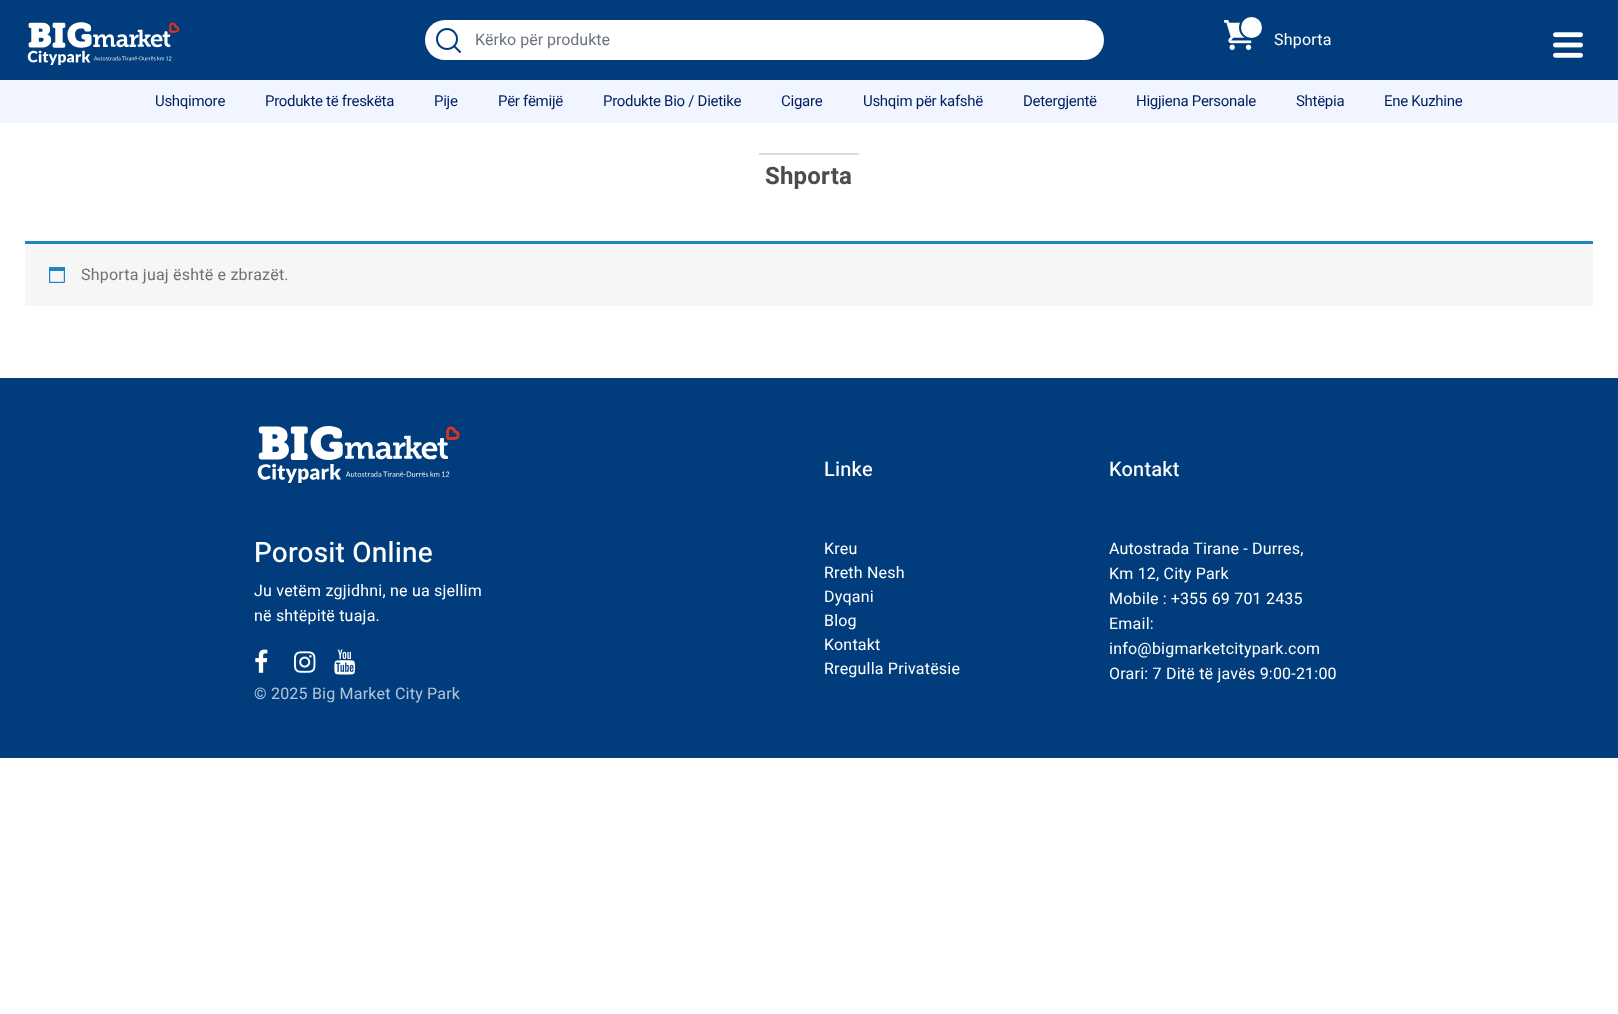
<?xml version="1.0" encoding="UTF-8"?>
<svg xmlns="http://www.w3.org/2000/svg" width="1618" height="1014">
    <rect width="100%" height="100%" fill="#FFFFFF"/>
    <rect x="0" y="0" width="1618" height="80" fill="#013D7D"/>
    <image x="27" y="22" width="153" height="43" href="img_01.png"/>
    <rect x="425" y="20" width="679" height="40" rx="20" fill="#FFFFFF"/>
    <image x="436" y="28" width="25" height="25" href="img_02.png"/>
    <text x="475" y="45" font-family="Heebo" font-size="16" fill="#6C757D">Kërko për produkte</text>
    <image x="1224" y="20" width="28" height="30" href="img_03.png"/>
    <circle cx="1251.5" cy="27.5" r="11.5" fill="#FFFFFF" stroke="#013D7C" stroke-width="2"/>
    <text x="1274" y="45" font-family="Heebo" font-size="16" letter-spacing="0.2" fill="#FFFFFF">Shporta</text>
    <image x="1553" y="32" width="30" height="26" href="img_04.png"/>
    <rect x="0" y="80" width="1618" height="43" fill="#F0F5FF"/>
    <text x="155" y="106" font-family="Heebo" font-size="15" letter-spacing="-0.3" fill="#001E60">Ushqimore</text>
    <text x="265" y="106" font-family="Heebo" font-size="15" letter-spacing="-0.3" fill="#001E60">Produkte të freskëta</text>
    <text x="434" y="106" font-family="Heebo" font-size="15" letter-spacing="-0.3" fill="#001E60">Pije</text>
    <text x="498" y="106" font-family="Heebo" font-size="15" letter-spacing="-0.3" fill="#001E60">Për fëmijë</text>
    <text x="603" y="106" font-family="Heebo" font-size="15" letter-spacing="-0.3" fill="#001E60">Produkte Bio / Dietike</text>
    <text x="781" y="106" font-family="Heebo" font-size="15" letter-spacing="-0.3" fill="#001E60">Cigare</text>
    <text x="863" y="106" font-family="Heebo" font-size="15" letter-spacing="-0.3" fill="#001E60">Ushqim për kafshë</text>
    <text x="1023" y="106" font-family="Heebo" font-size="15" letter-spacing="-0.3" fill="#001E60">Detergjentë</text>
    <text x="1136" y="106" font-family="Heebo" font-size="15" letter-spacing="-0.3" fill="#001E60">Higjiena Personale</text>
    <text x="1296" y="106" font-family="Heebo" font-size="15" letter-spacing="-0.3" fill="#001E60">Shtëpia</text>
    <text x="1384" y="106" font-family="Heebo" font-size="15" letter-spacing="-0.3" fill="#001E60">Ene Kuzhine</text>
    <rect x="759" y="153" width="100" height="2" fill="#DDDDDD"/>
    <text x="765" y="184" font-family="Heebo" font-size="24" font-weight="700" letter-spacing="0.2" fill="#4C4C4C">Shporta</text>
    <rect x="25" y="244" width="1568" height="62" fill="#F7F6F7"/>
    <rect x="25" y="241" width="1568" height="3" fill="#1E85BE"/>
    <image x="49" y="267" width="16" height="16" href="img_05.png"/>
    <text x="81" y="280" font-family="Heebo" font-size="16" letter-spacing="0.2" fill="#717171">Shporta juaj është e zbrazët.</text>
    <rect x="0" y="378" width="1618" height="380" fill="#013D7D"/>
    <image x="257" y="426" width="203" height="57" href="img_06.png"/>
    <text x="824" y="476" font-family="Heebo" font-size="20" font-weight="500" letter-spacing="0.2" fill="#FFFFFF">Linke</text>
    <text x="1109" y="476" font-family="Heebo" font-size="20" font-weight="500" letter-spacing="0.2" fill="#FFFFFF">Kontakt</text>
    <text x="254" y="562" font-family="Heebo" font-size="28" font-weight="500" letter-spacing="0.2" fill="#FFFFFF">Porosit Online</text>
    <text font-family="Heebo" font-size="16" letter-spacing="0.2" fill="#FFFFFF">
        <tspan x="254" y="596">Ju vetëm zgjidhni, ne ua sjellim</tspan>
        <tspan x="254" y="621">në shtëpitë tuaja.</tspan>
    </text>
    <image x="255" y="649" width="13" height="24" href="img_07.png"/>
    <image x="294" y="651" width="22" height="22" href="img_08.png"/>
    <image x="334" y="649" width="22" height="26" href="img_09.png"/>
    <text x="254" y="699" font-family="Heebo" font-size="16" letter-spacing="0.2" fill="#B3C5D8">© 2025 Big Market City Park</text>
    <text font-family="Heebo" font-size="16" letter-spacing="0.2" fill="#FFFFFF">
        <tspan x="824" y="554">Kreu</tspan>
        <tspan x="824" y="578">Rreth Nesh</tspan>
        <tspan x="824" y="602">Dyqani</tspan>
        <tspan x="824" y="626">Blog</tspan>
        <tspan x="824" y="650">Kontakt</tspan>
        <tspan x="824" y="674">Rregulla Privatësie</tspan>
    </text>
    <text font-family="Heebo" font-size="16" letter-spacing="0.2" fill="#FFFFFF">
        <tspan x="1109" y="554">Autostrada Tirane - Durres,</tspan>
        <tspan x="1109" y="579">Km 12, City Park</tspan>
        <tspan x="1109" y="604">Mobile : +355 69 701 2435</tspan>
        <tspan x="1109" y="629">Email:</tspan>
        <tspan x="1109" y="654">info@bigmarketcitypark.com</tspan>
        <tspan x="1109" y="679">Orari: 7 Ditë të javës 9:00-21:00</tspan>
    </text>
</svg>
